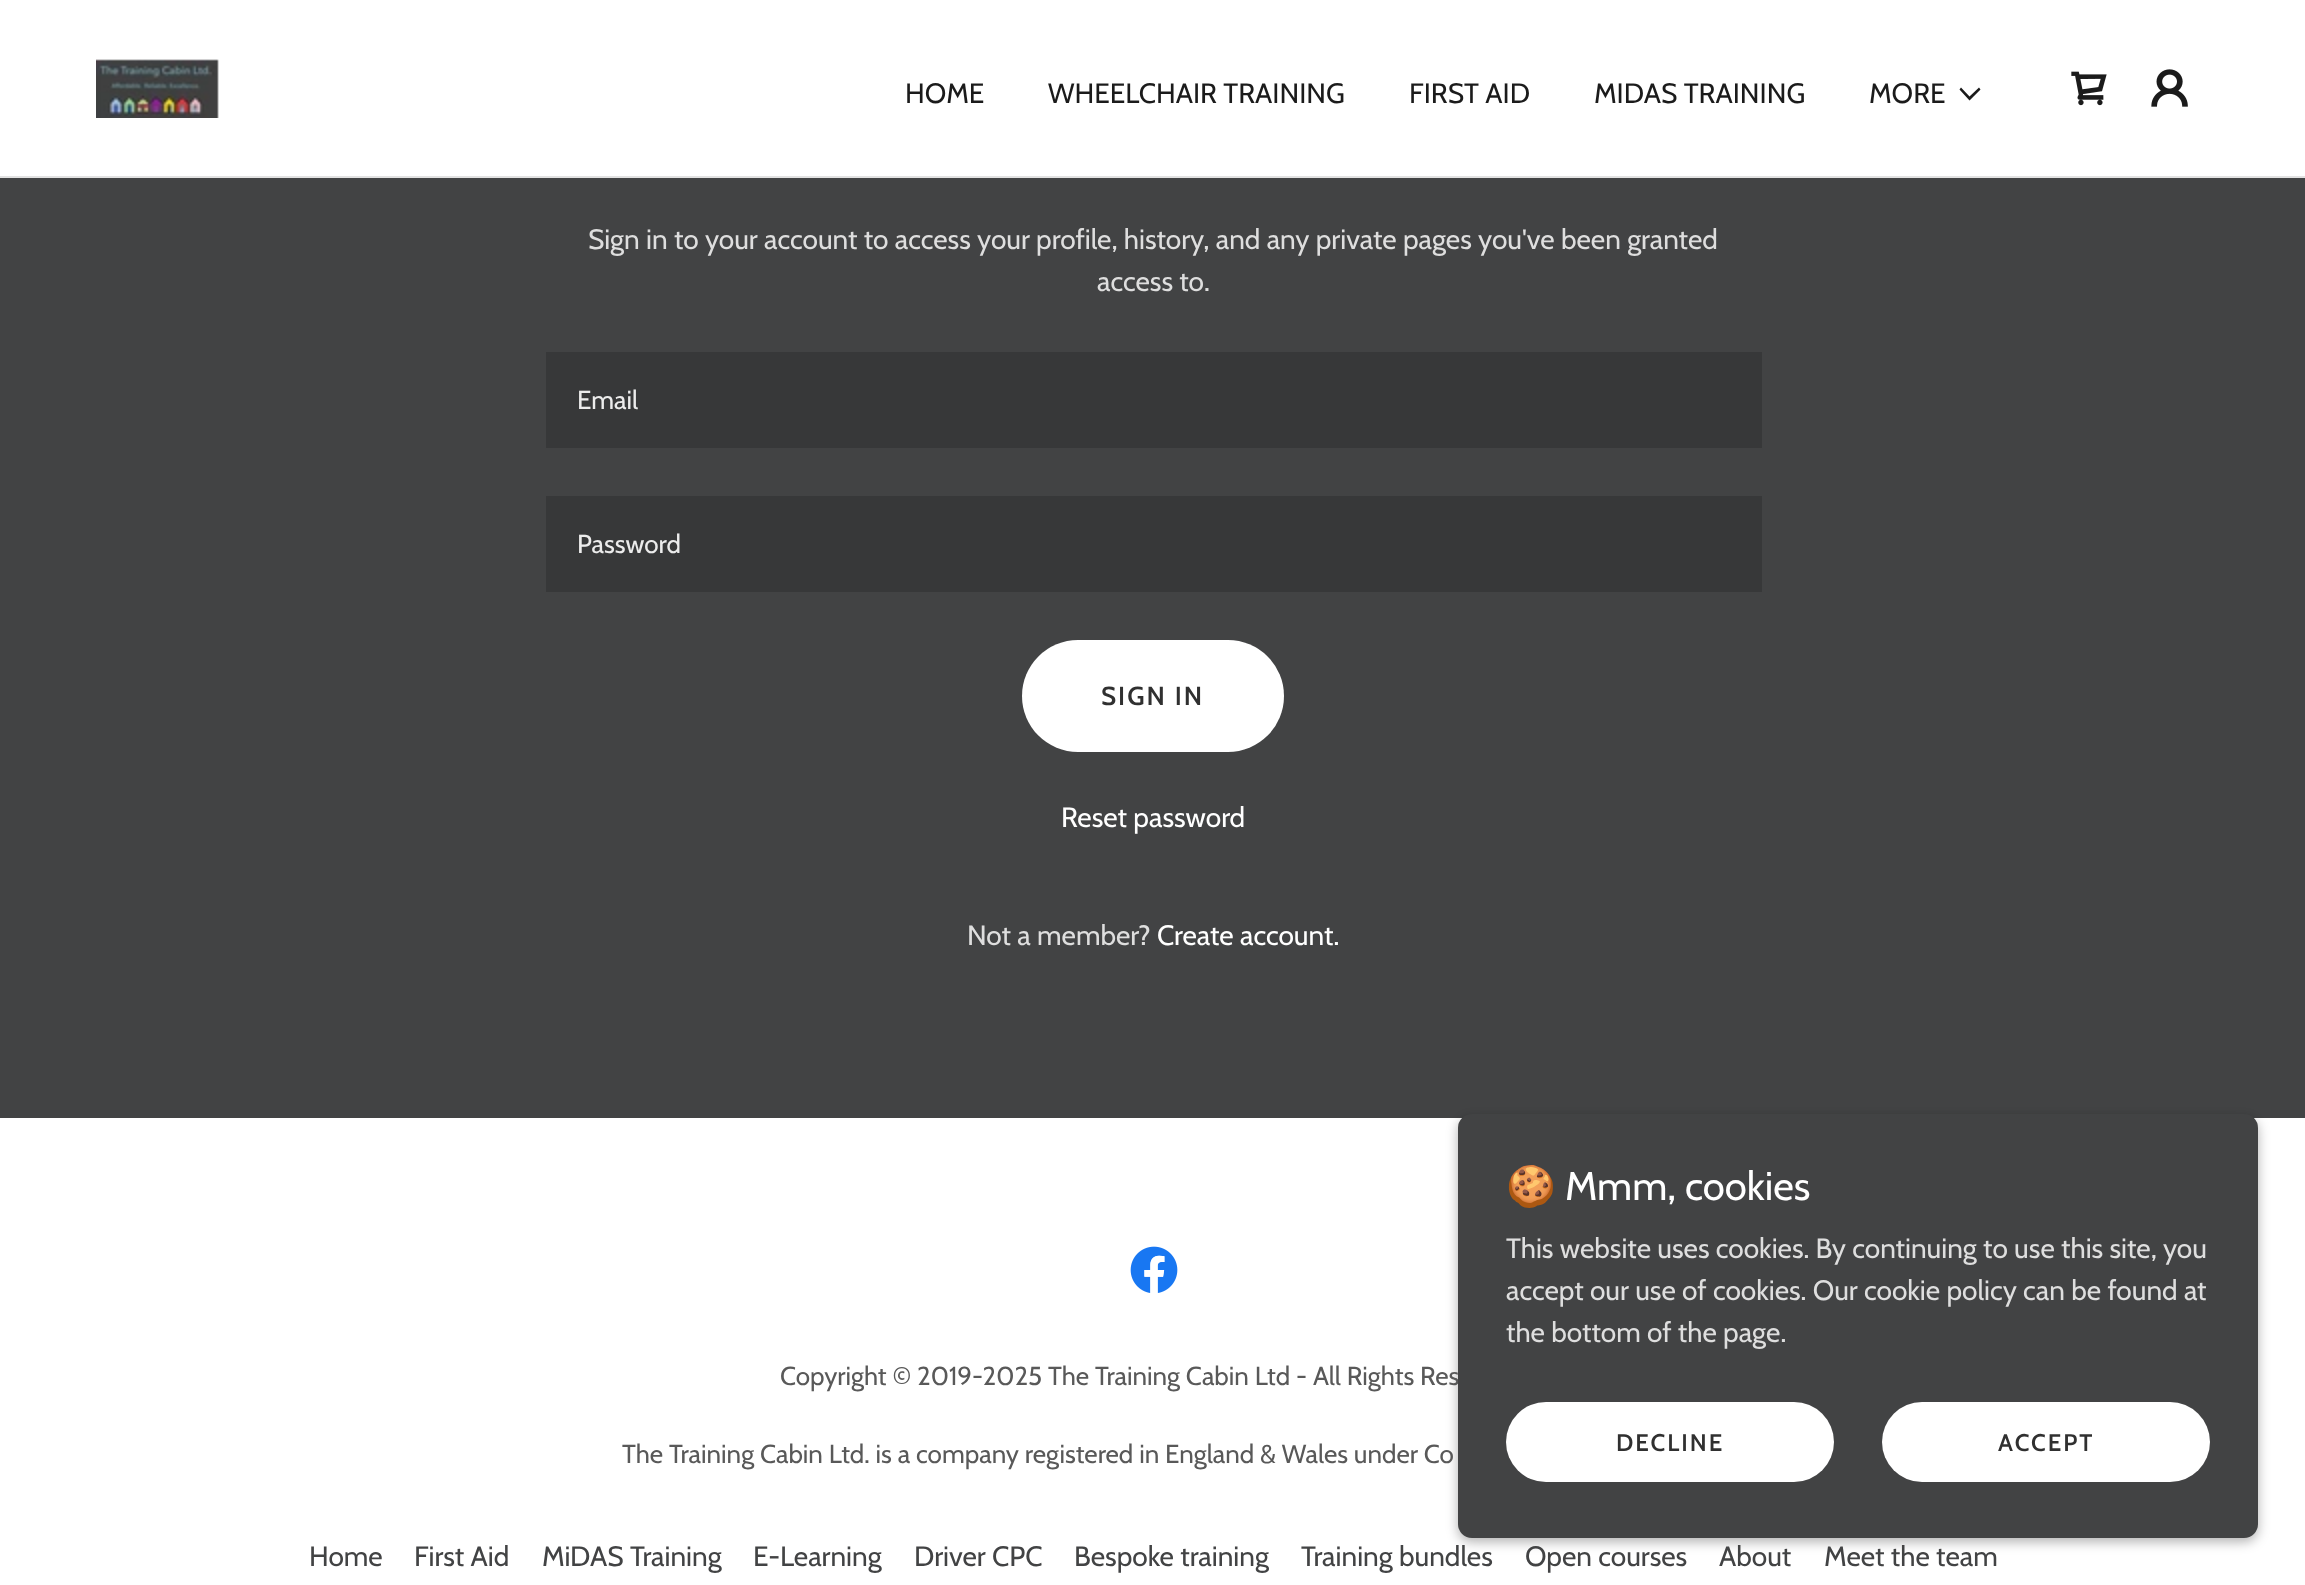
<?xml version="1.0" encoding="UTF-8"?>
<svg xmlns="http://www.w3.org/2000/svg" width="2305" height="1585">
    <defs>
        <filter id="blur1" x="-50%" y="-200%" width="200%" height="500%"><feGaussianBlur stdDeviation="6"/></filter>
    </defs>
    <rect width="100%" height="100%" fill="#FFFFFF"/>
    <image x="96" y="59" width="123" height="59" href="img_01.png"/>
    <text x="905" y="103" font-family="Cabin" font-size="28" fill="#1B1B1B">HOME</text>
    <text x="1048" y="103" font-family="Cabin" font-size="28" fill="#1B1B1B">WHEELCHAIR TRAINING</text>
    <text x="1409" y="103" font-family="Cabin" font-size="28" fill="#1B1B1B">FIRST AID</text>
    <text x="1594" y="103" font-family="Cabin" font-size="28" fill="#1B1B1B">MIDAS TRAINING</text>
    <text x="1869" y="103" font-family="Cabin" font-size="28" fill="#1B1B1B">MORE</text>
    <path d="M 1979 87.5 L 1969.5 96.5 L 1961 87.5 L 1959.5 89.5 L 1969.5 100.5 L 1980.5 89.5 Z" fill="#1B1B1B" fill-rule="evenodd"/>
    <image x="2071" y="71" width="36" height="35" href="img_02.png"/>
    <image x="2151" y="69" width="37" height="38" href="img_03.png"/>
    <rect x="0" y="176" width="2305" height="2" fill="#E2E2E2"/>
    <rect x="0" y="178" width="2305" height="940" fill="#424344"/>
    <text x="588" y="249" font-family="Cabin" font-size="28" fill="#DEDEDE">Sign in to your account to access your profile, history, and any private pages you've been granted</text>
    <text x="1097" y="291" font-family="Cabin" font-size="28" fill="#DEDEDE">access to.</text>
    <rect x="546" y="352" width="1216" height="96" fill="#373839"/>
    <text x="577" y="409" font-family="Cabin" font-size="26" fill="#ECECEC">Email</text>
    <rect x="546" y="496" width="1216" height="96" fill="#373839"/>
    <text x="577" y="553" font-family="Cabin" font-size="26" fill="#ECECEC">Password</text>
    <rect x="1022" y="640" width="262" height="112" rx="56" fill="#FFFFFF"/>
    <text x="1101" y="705" font-family="Cabin" font-size="26" font-weight="600" letter-spacing="2" fill="#303030">SIGN IN</text>
    <text x="1061" y="827" font-family="Cabin" font-size="28" fill="#FFFFFF">Reset password</text>
    <text x="967" y="945" font-family="Cabin" font-size="28" fill="#DEDEDE">Not a member?</text>
    <text x="1157" y="945" font-family="Cabin" font-size="28" fill="#FFFFFF">Create account.</text>
    <rect x="1458" y="1118" width="800" height="424" rx="14" fill="#000000" fill-opacity="0.3" filter="url(#blur1)"/>
    <text x="780" y="1385" font-family="Cabin" font-size="26" fill="#595959">Copyright © 2019-2025 The Training Cabin Ltd - All Rights Res</text>
    <rect x="1458" y="1114" width="800" height="424" rx="14" fill="#424344"/>
    <text x="1506" y="1200" font-family="Noto Color Emoji" font-size="40" fill="#FFFFFF">🍪</text>
    <text x="1565" y="1200" font-family="Cabin" font-size="40" fill="#FFFFFF">Mmm, cookies</text>
    <text font-family="Cabin" font-size="28" fill="#DEDEDE">
        <tspan x="1506" y="1258">This website uses cookies. By continuing to use this site, you</tspan>
        <tspan x="1506" y="1300">accept our use of cookies. Our cookie policy can be found at</tspan>
        <tspan x="1506" y="1342">the bottom of the page.</tspan>
    </text>
    <rect x="1506" y="1402" width="328" height="80" rx="40" fill="#FFFFFF"/>
    <text x="1616" y="1451" font-family="Cabin" font-size="24" font-weight="600" letter-spacing="2" fill="#303030">DECLINE</text>
    <rect x="1882" y="1402" width="328" height="80" rx="40" fill="#FFFFFF"/>
    <text x="1998" y="1451" font-family="Cabin" font-size="24" font-weight="600" letter-spacing="2" fill="#303030">ACCEPT</text>
    <image x="1130" y="1246" width="48" height="47" href="img_04.png"/>
    <text x="622" y="1463" font-family="Cabin" font-size="26" fill="#595959">The Training Cabin Ltd. is a company registered in England &amp; Wales under Co</text>
    <text x="309" y="1566" font-family="Cabin" font-size="28" fill="#424344">Home</text>
    <text x="414" y="1566" font-family="Cabin" font-size="28" fill="#424344">First Aid</text>
    <text x="542" y="1566" font-family="Cabin" font-size="28" fill="#424344">MiDAS Training</text>
    <text x="753" y="1566" font-family="Cabin" font-size="28" fill="#424344">E-Learning</text>
    <text x="914" y="1566" font-family="Cabin" font-size="28" fill="#424344">Driver CPC</text>
    <text x="1074" y="1566" font-family="Cabin" font-size="28" fill="#424344">Bespoke training</text>
    <text x="1301" y="1566" font-family="Cabin" font-size="28" fill="#424344">Training bundles</text>
    <text x="1525" y="1566" font-family="Cabin" font-size="28" fill="#424344">Open courses</text>
    <text x="1719" y="1566" font-family="Cabin" font-size="28" fill="#424344">About</text>
    <text x="1824" y="1566" font-family="Cabin" font-size="28" fill="#424344">Meet the team</text>
</svg>
